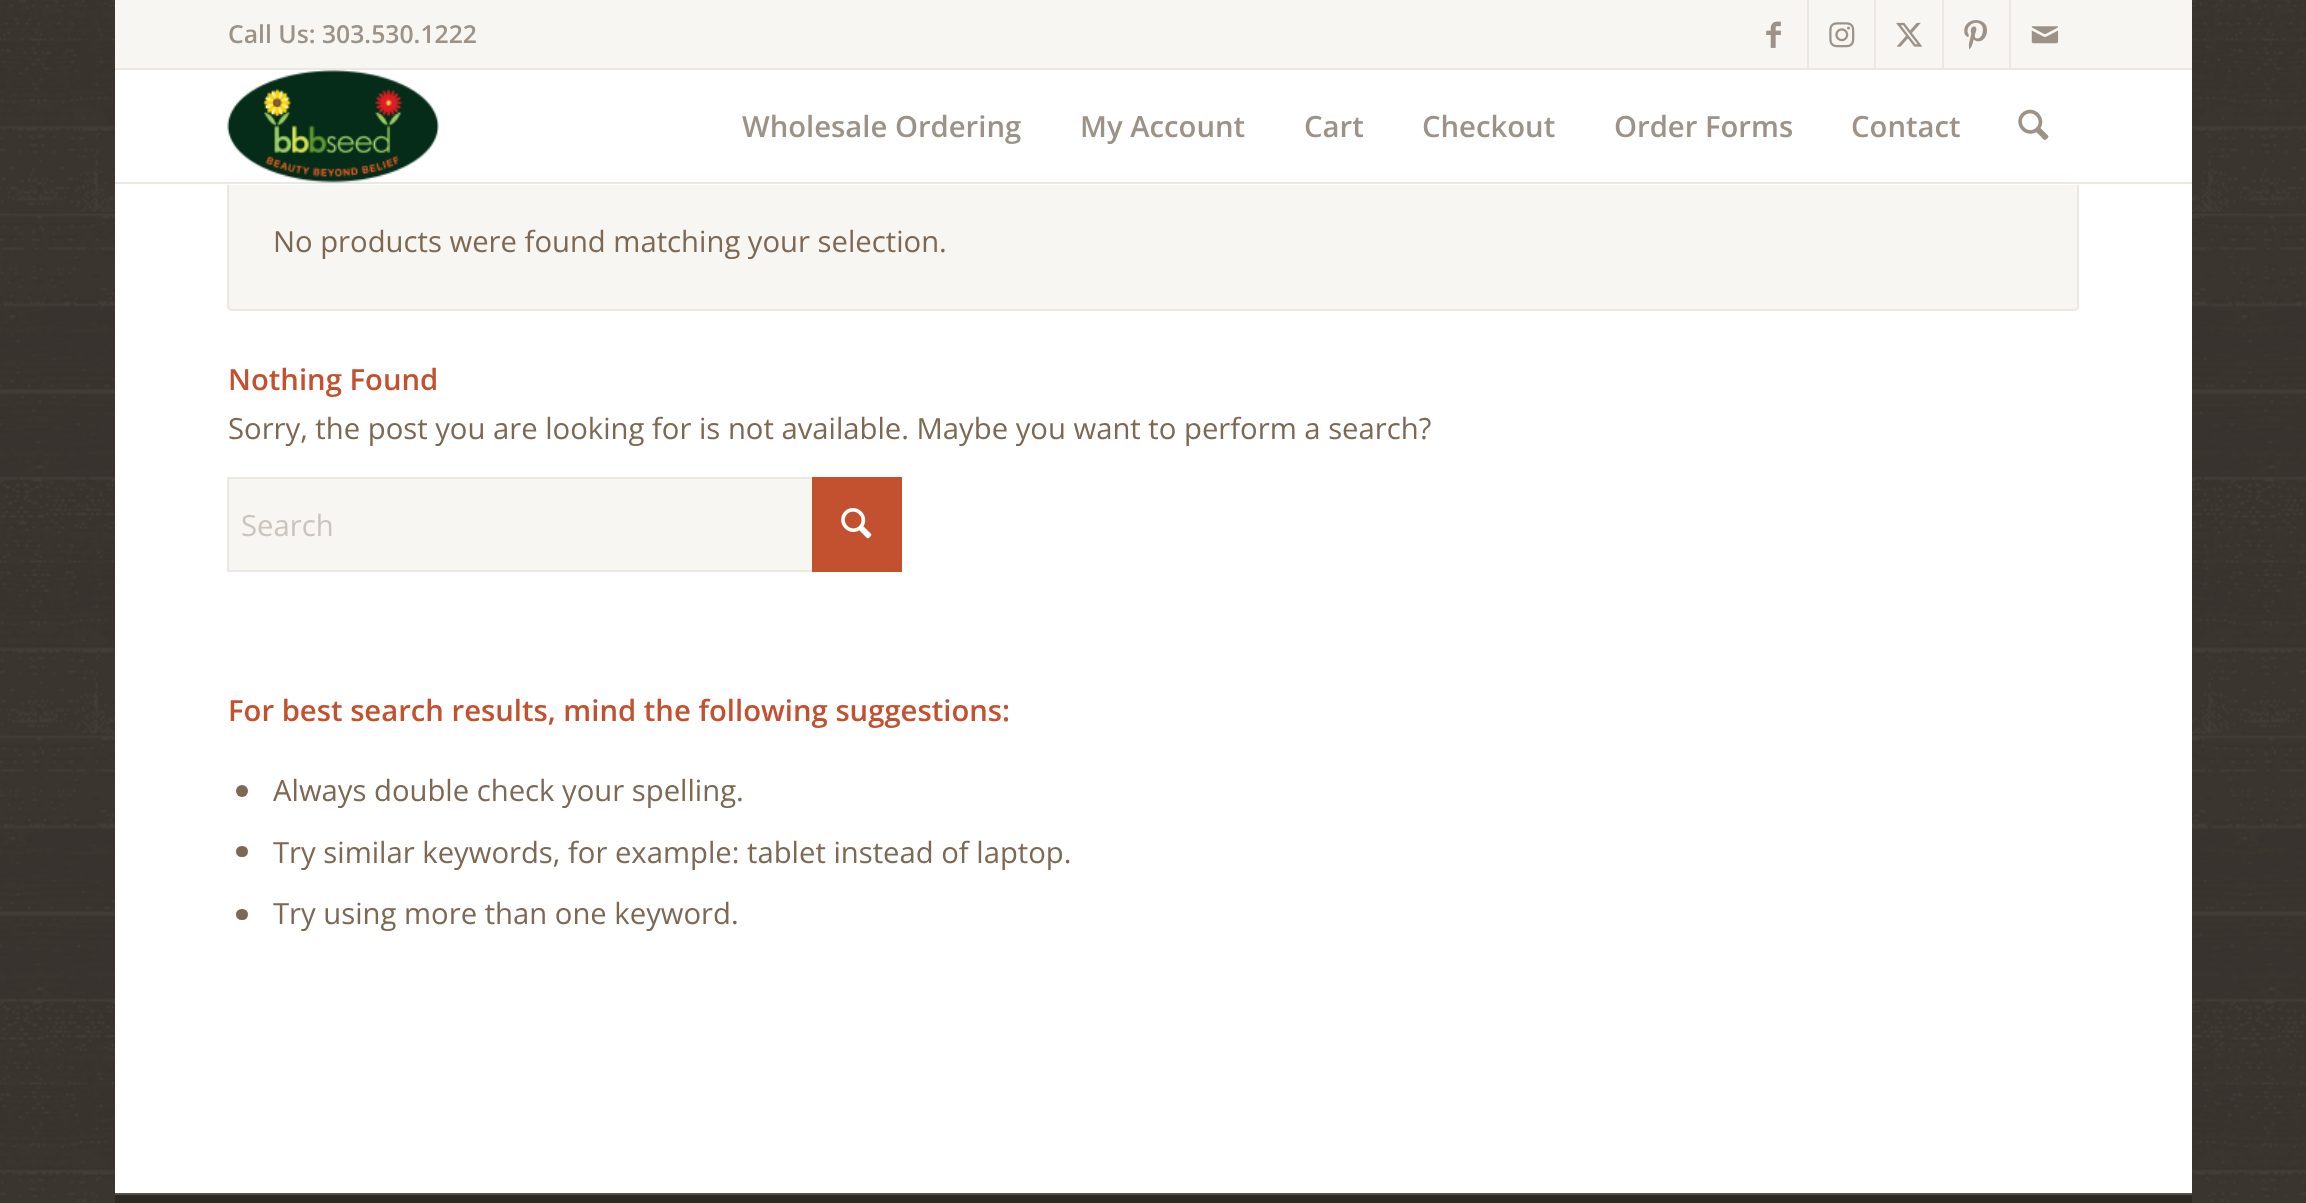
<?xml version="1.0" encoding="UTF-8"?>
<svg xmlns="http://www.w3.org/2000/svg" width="2306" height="1203">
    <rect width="100%" height="100%" fill="#342F29"/>
    <image x="0" y="0" width="2306" height="1203" href="img_01.png"/>
    <rect x="115" y="0" width="2077" height="68" fill="#F8F6F2"/>
    <rect x="115" y="68" width="2077" height="2" fill="#EBE8E2"/>
    <text x="228" y="43" font-family="Open Sans" font-size="24.75" font-weight="600" fill="#9C9288">Call Us: 303.530.1222</text>
    <rect x="1807" y="0" width="2" height="68" fill="#EBE8E2"/>
    <image x="1766" y="21" width="15" height="27" href="img_02.png"/>
    <rect x="1874" y="0" width="2" height="68" fill="#EBE8E2"/>
    <image x="1829" y="22" width="26" height="26" href="img_03.png"/>
    <rect x="1942" y="0" width="2" height="68" fill="#EBE8E2"/>
    <image x="1896" y="22" width="27" height="25" href="img_04.png"/>
    <rect x="2009" y="0" width="2" height="68" fill="#EBE8E2"/>
    <image x="1964" y="20" width="23" height="30" href="img_05.png"/>
    <image x="2031" y="26" width="28" height="18" href="img_06.png"/>
    <rect x="115" y="70" width="2077" height="1123" fill="#FFFFFF"/>
    <rect x="228" y="174" width="1850" height="136" rx="4" fill="#F8F6F2" stroke="#EBE8E2" stroke-width="2"/>
    <rect x="227" y="173" width="1852" height="12" fill="#FFFFFF" fill-opacity="0.95"/>
    <rect x="115" y="182" width="2077" height="2" fill="#EBE8E2"/>
    <image x="227" y="70" width="212" height="113" href="img_07.png"/>
    <text x="742" y="137" font-family="Open Sans" font-size="29.25" font-weight="600" fill="#9C9288">Wholesale Ordering</text>
    <text x="1080" y="137" font-family="Open Sans" font-size="29.25" font-weight="600" fill="#9C9288">My Account</text>
    <text x="1304" y="137" font-family="Open Sans" font-size="29.25" font-weight="600" fill="#9C9288">Cart</text>
    <text x="1422" y="137" font-family="Open Sans" font-size="29.25" font-weight="600" fill="#9C9288">Checkout</text>
    <text x="1614" y="137" font-family="Open Sans" font-size="29.25" font-weight="600" fill="#9C9288">Order Forms</text>
    <text x="1851" y="137" font-family="Open Sans" font-size="29.25" font-weight="600" fill="#9C9288">Contact</text>
    <image x="2018" y="109" width="31" height="31" href="img_08.png"/>
    <text x="273" y="252" font-family="Open Sans" font-size="29.25" fill="#7C6853">No products were found matching your selection.</text>
    <text x="228" y="390" font-family="Open Sans" font-size="29.25" font-weight="600" fill="#C3512F">Nothing Found</text>
    <text x="228" y="439" font-family="Open Sans" font-size="29.25" fill="#7C6853">Sorry, the post you are looking for is not available. Maybe you want to perform a search?</text>
    <rect x="229" y="479" width="583" height="91" fill="#F8F6F2"/>
    <rect x="228" y="478" width="673" height="93" fill="none" stroke="#EBE8E2" stroke-width="2"/>
    <rect x="812" y="477" width="90" height="95" fill="#C3512F"/>
    <text x="241" y="536" font-family="Open Sans" font-size="29.25" fill="#CAC4BD">Search</text>
    <image x="841" y="508" width="31" height="31" href="img_09.png"/>
    <text x="228" y="721" font-family="Open Sans" font-size="29.25" font-weight="600" fill="#C3512F">For best search results, mind the following suggestions:</text>
    <circle cx="242" cy="791" r="6" fill="#7C6853"/>
    <text x="273" y="801" font-family="Open Sans" font-size="29.25" fill="#7C6853">Always double check your spelling.</text>
    <rect x="236" y="846" width="12" height="11" rx="5.5" fill="#7C6853"/>
    <text x="273" y="863" font-family="Open Sans" font-size="29.25" fill="#7C6853">Try similar keywords, for example: tablet instead of laptop.</text>
    <rect x="236" y="909" width="12" height="11" rx="5.5" fill="#7C6853"/>
    <text x="273" y="924" font-family="Open Sans" font-size="29.25" fill="#7C6853">Try using more than one keyword.</text>
    <rect x="115" y="1195" width="2077" height="8" fill="#2B2822"/>
    <rect x="115" y="1193" width="2077" height="2" fill="#575149"/>
</svg>
